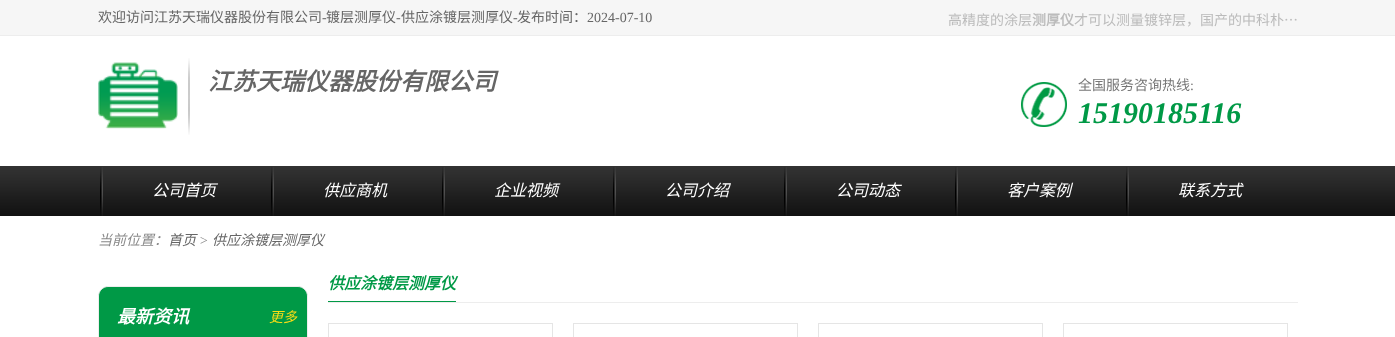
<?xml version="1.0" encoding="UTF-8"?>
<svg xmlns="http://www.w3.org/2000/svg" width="1395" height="337">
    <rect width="100%" height="100%" fill="#FFFFFF"/>
    <rect x="0" y="0" width="1395" height="35" fill="#F6F6F6"/>
    <rect x="0" y="35" width="1395" height="1" fill="#EDEDED"/>
    <text x="98" y="22" font-family="Noto Sans CJK SC" font-size="14" fill="#666666">欢迎访问江苏天瑞仪器股份有限公司</text>
    <text x="322" y="22" font-family="Liberation Serif" font-size="14" fill="#666666">-</text>
    <text x="326" y="22" font-family="Noto Sans CJK SC" font-size="14" fill="#666666">镀层测厚仪</text>
    <text x="396" y="22" font-family="Liberation Serif" font-size="14" fill="#666666">-</text>
    <text x="401" y="22" font-family="Noto Sans CJK SC" font-size="14" fill="#666666">供应涂镀层测厚仪</text>
    <text x="513" y="22" font-family="Liberation Serif" font-size="14" fill="#666666">-</text>
    <text x="517" y="22" font-family="Noto Sans CJK SC" font-size="14" fill="#666666">发布时间：</text>
    <text x="587" y="22" font-family="Liberation Serif" font-size="14" fill="#666666">2024-07-10</text>
    <text x="948" y="25" font-family="Noto Sans CJK SC" font-size="14" fill="#BBBBBB">高精度的涂层</text>
    <text x="1032" y="25" font-family="Noto Sans CJK SC" font-size="14" font-weight="700" fill="#BBBBBB">测厚仪</text>
    <text x="1074" y="25" font-family="Noto Sans CJK SC" font-size="14" fill="#BBBBBB">才可以测量镀锌层，国产的中科朴…</text>
    <image x="98" y="62" width="80" height="67" href="img_01.png"/>
    <image x="188" y="58" width="2" height="77" href="img_02.png"/>
    <text x="208" y="90" font-family="Noto Sans CJK SC" font-size="24" font-weight="700" font-style="italic" fill="#666666">江苏天瑞仪器股份有限公司</text>
    <image x="1021" y="82" width="46" height="45" href="img_03.png"/>
    <text x="1078" y="90" font-family="Noto Sans CJK SC" font-size="14" fill="#777777">全国服务咨询热线</text>
    <text x="1190" y="90" font-family="Liberation Serif" font-size="14" fill="#777777">:</text>
    <text x="1078" y="123" font-family="Liberation Serif" font-size="30" font-weight="700" font-style="italic" fill="#009946">15190185116</text>
    <image x="0" y="166" width="1395" height="50" href="img_04.png"/>
    <image x="100" y="167" width="3" height="49" href="img_05.png"/>
    <text x="152" y="196" font-family="Noto Sans CJK SC" font-size="16" font-style="italic" fill="#FFFFFF">公司首页</text>
    <image x="271" y="167" width="3" height="49" href="img_05.png"/>
    <text x="323" y="196" font-family="Noto Sans CJK SC" font-size="16" font-style="italic" fill="#FFFFFF">供应商机</text>
    <image x="442" y="167" width="3" height="49" href="img_06.png"/>
    <text x="494" y="196" font-family="Noto Sans CJK SC" font-size="16" font-style="italic" fill="#FFFFFF">企业视频</text>
    <image x="613" y="167" width="3" height="49" href="img_06.png"/>
    <text x="665" y="196" font-family="Noto Sans CJK SC" font-size="16" font-style="italic" fill="#FFFFFF">公司介绍</text>
    <image x="784" y="167" width="3" height="49" href="img_05.png"/>
    <text x="836" y="196" font-family="Noto Sans CJK SC" font-size="16" font-style="italic" fill="#FFFFFF">公司动态</text>
    <image x="955" y="167" width="3" height="49" href="img_05.png"/>
    <text x="1007" y="196" font-family="Noto Sans CJK SC" font-size="16" font-style="italic" fill="#FFFFFF">客户案例</text>
    <image x="1126" y="167" width="3" height="49" href="img_06.png"/>
    <text x="1178" y="196" font-family="Noto Sans CJK SC" font-size="16" font-style="italic" fill="#FFFFFF">联系方式</text>
    <text x="98" y="245" font-family="Noto Sans CJK SC" font-size="14" font-style="italic" fill="#888888">当前位置：</text>
    <text x="168" y="245" font-family="Noto Sans CJK SC" font-size="14" font-style="italic" fill="#666666">首页</text>
    <text x="199" y="245" font-family="Liberation Serif" font-size="14" font-style="italic" fill="#888888">&gt;</text>
    <text x="212" y="245" font-family="Noto Sans CJK SC" font-size="14" font-style="italic" fill="#666666">供应涂镀层测厚仪</text>
    <rect x="328" y="302" width="970" height="1" fill="#EDEDED"/>
    <rect x="328" y="301" width="128" height="1" fill="#009946"/>
    <text x="328" y="289" font-family="Noto Sans CJK SC" font-size="16" font-weight="700" font-style="italic" fill="#009946">供应涂镀层测厚仪</text>
    <rect x="328.5" y="323.5" width="224" height="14" fill="none" stroke="#E5E5E5"/>
    <rect x="573.5" y="323.5" width="224" height="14" fill="none" stroke="#E5E5E5"/>
    <rect x="818.5" y="323.5" width="224" height="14" fill="none" stroke="#E5E5E5"/>
    <rect x="1063.5" y="323.5" width="224" height="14" fill="none" stroke="#E5E5E5"/>
    <path d="M 108 286.5 H 298 C 303 286.5 307.5 291 307.5 296 V 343.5 H 98.5 V 296 C 98.5 291 103 286.5 108 286.5 Z" fill="#009946" stroke="#EDEDED"/>
    <text x="117" y="323" font-family="Noto Sans CJK SC" font-size="18" font-weight="700" font-style="italic" fill="#FFFFFF">最新资讯</text>
    <text x="269" y="322" font-family="Noto Sans CJK SC" font-size="14" font-style="italic" fill="#FADD15">更多</text>
</svg>
